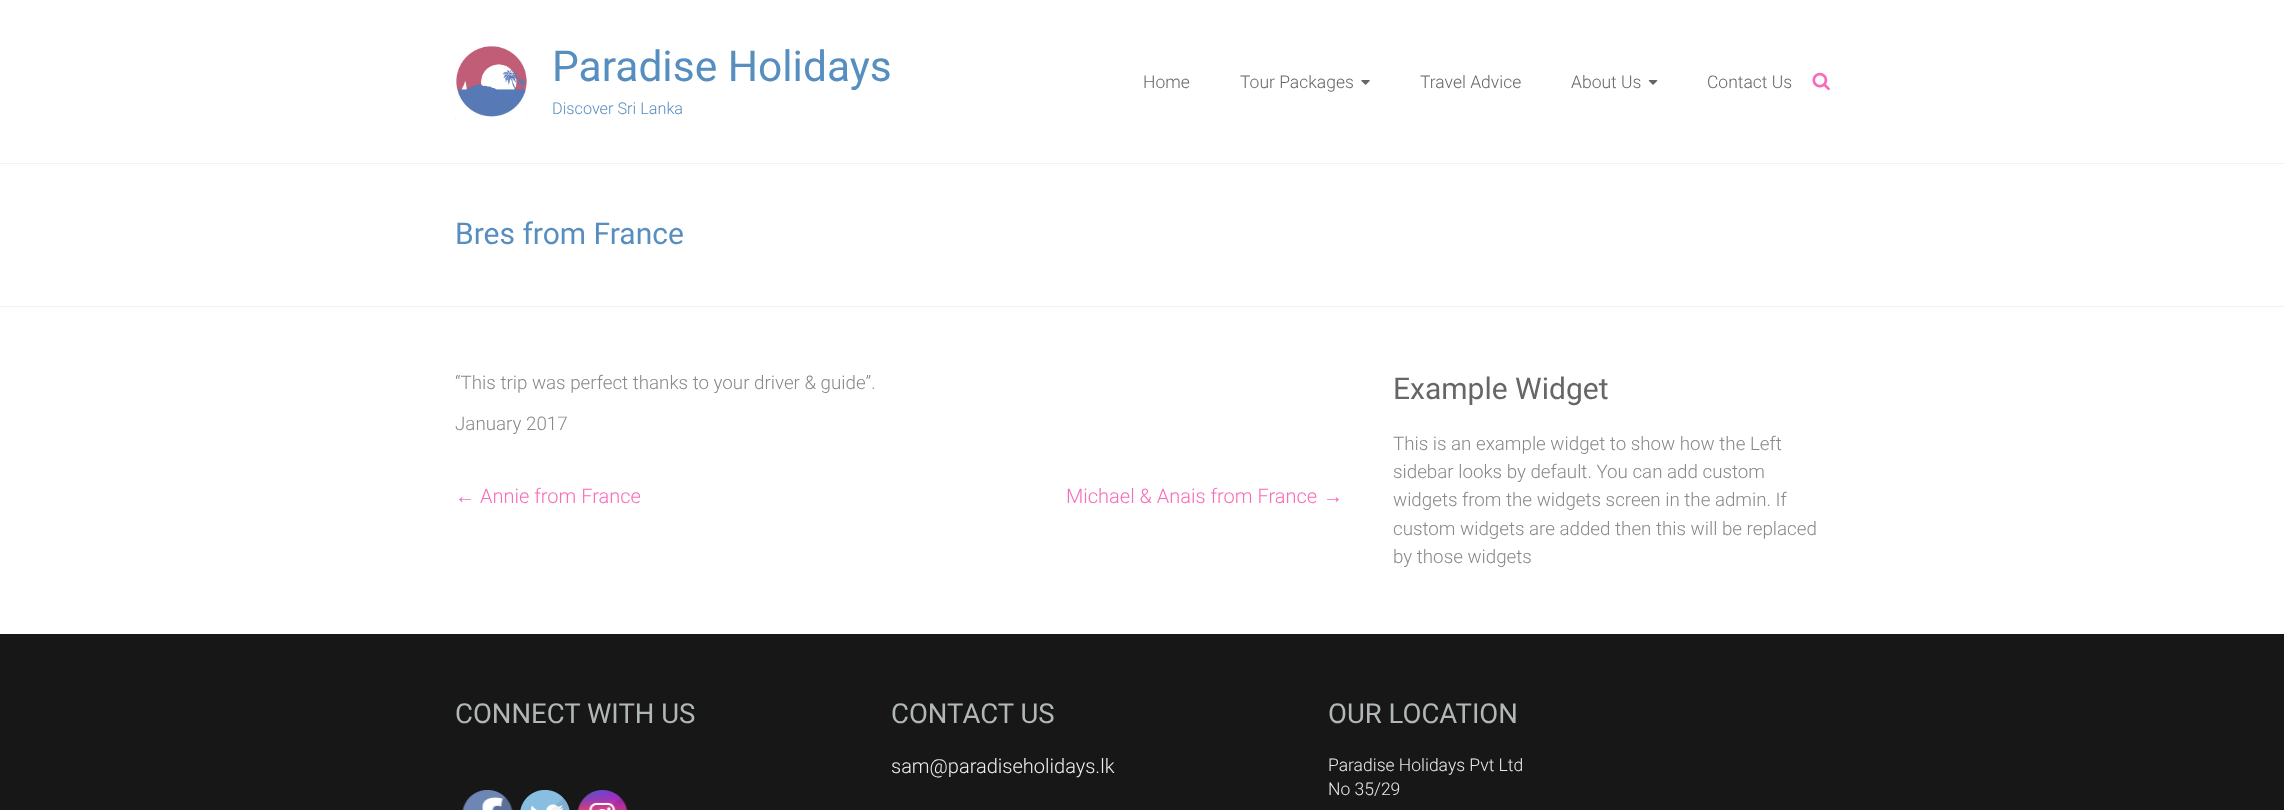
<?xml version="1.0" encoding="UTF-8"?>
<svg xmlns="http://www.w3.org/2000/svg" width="2284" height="810">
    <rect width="100%" height="100%" fill="#FFFFFF"/>
    <rect x="0" y="163" width="2284" height="1" fill="#F2F2F2"/>
    <image x="455" y="46" width="73" height="73" href="img_01.png"/>
    <text x="552" y="81" font-family="Roboto" font-size="42.5" fill="#568EBF">Paradise Holidays</text>
    <text x="552" y="114" font-family="Roboto" font-size="16.25" font-weight="300" fill="#568EBF">Discover Sri Lanka</text>
    <text x="1143" y="88" font-family="Roboto" font-size="17.5" font-weight="300" fill="#666666">Home</text>
    <text x="1240" y="88" font-family="Roboto" font-size="17.5" font-weight="300" fill="#666666">Tour Packages</text>
    <image x="1361" y="80" width="9" height="5" href="img_02.png"/>
    <text x="1420" y="88" font-family="Roboto" font-size="17.5" font-weight="300" fill="#666666">Travel Advice</text>
    <text x="1571" y="88" font-family="Roboto" font-size="17.5" font-weight="300" fill="#666666">About Us</text>
    <image x="1648" y="80" width="10" height="5" href="img_03.png"/>
    <text x="1707" y="88" font-family="Roboto" font-size="17.5" font-weight="300" fill="#666666">Contact Us</text>
    <image x="1812" y="72" width="18" height="19" href="img_04.png"/>
    <rect x="0" y="306" width="2284" height="1" fill="#F2F2F2"/>
    <text x="455" y="244" font-family="Roboto" font-size="30" fill="#568EBF">Bres from France</text>
    <text x="455" y="389" font-family="Roboto" font-size="18.75" font-weight="300" fill="#888888">“This trip was perfect thanks to your driver &amp; guide”.</text>
    <text x="455" y="430" font-family="Roboto" font-size="18.75" font-weight="300" fill="#888888">January 2017</text>
    <text x="455" y="503" font-family="Liberation Sans" font-size="20" fill="#F96BB7">←</text>
    <text x="480" y="503" font-family="Roboto" font-size="20" font-weight="300" fill="#F96BB7">Annie from France</text>
    <text x="1066" y="503" font-family="Roboto" font-size="20" font-weight="300" fill="#F96BB7">Michael &amp; Anais from France</text>
    <text x="1323" y="503" font-family="Liberation Sans" font-size="20" fill="#F96BB7">→</text>
    <text x="1393" y="399" font-family="Roboto" font-size="30" fill="#666666">Example Widget</text>
    <text font-family="Roboto" font-size="18.75" font-weight="300" fill="#888888">
        <tspan x="1393" y="450">This is an example widget to show how the Left</tspan>
        <tspan x="1393" y="478">sidebar looks by default. You can add custom</tspan>
        <tspan x="1393" y="506">widgets from the widgets screen in the admin. If</tspan>
        <tspan x="1393" y="535">custom widgets are added then this will be replaced</tspan>
        <tspan x="1393" y="563">by those widgets</tspan>
    </text>
    <rect x="0" y="634" width="2284" height="176" fill="#171717"/>
    <text x="455" y="723" font-family="Roboto" font-size="27.5" fill="#B1B6B6">CONNECT WITH US</text>
    <image x="462" y="790" width="51" height="20" href="img_05.png"/>
    <image x="520" y="790" width="50" height="20" href="img_06.png"/>
    <image x="577" y="790" width="51" height="20" href="img_07.png"/>
    <text x="891" y="723" font-family="Roboto" font-size="27.5" fill="#B1B6B6">CONTACT US</text>
    <text x="891" y="773" font-family="Roboto" font-size="20" font-weight="300" fill="#EFEFEF">sam@paradiseholidays.lk</text>
    <text x="1328" y="723" font-family="Roboto" font-size="27.5" fill="#B1B6B6">OUR LOCATION</text>
    <text font-family="Roboto" font-size="17.5" font-weight="300" fill="#E9E9E9">
        <tspan x="1328" y="771">Paradise Holidays Pvt Ltd</tspan>
        <tspan x="1328" y="795">No 35/29</tspan>
    </text>
</svg>
